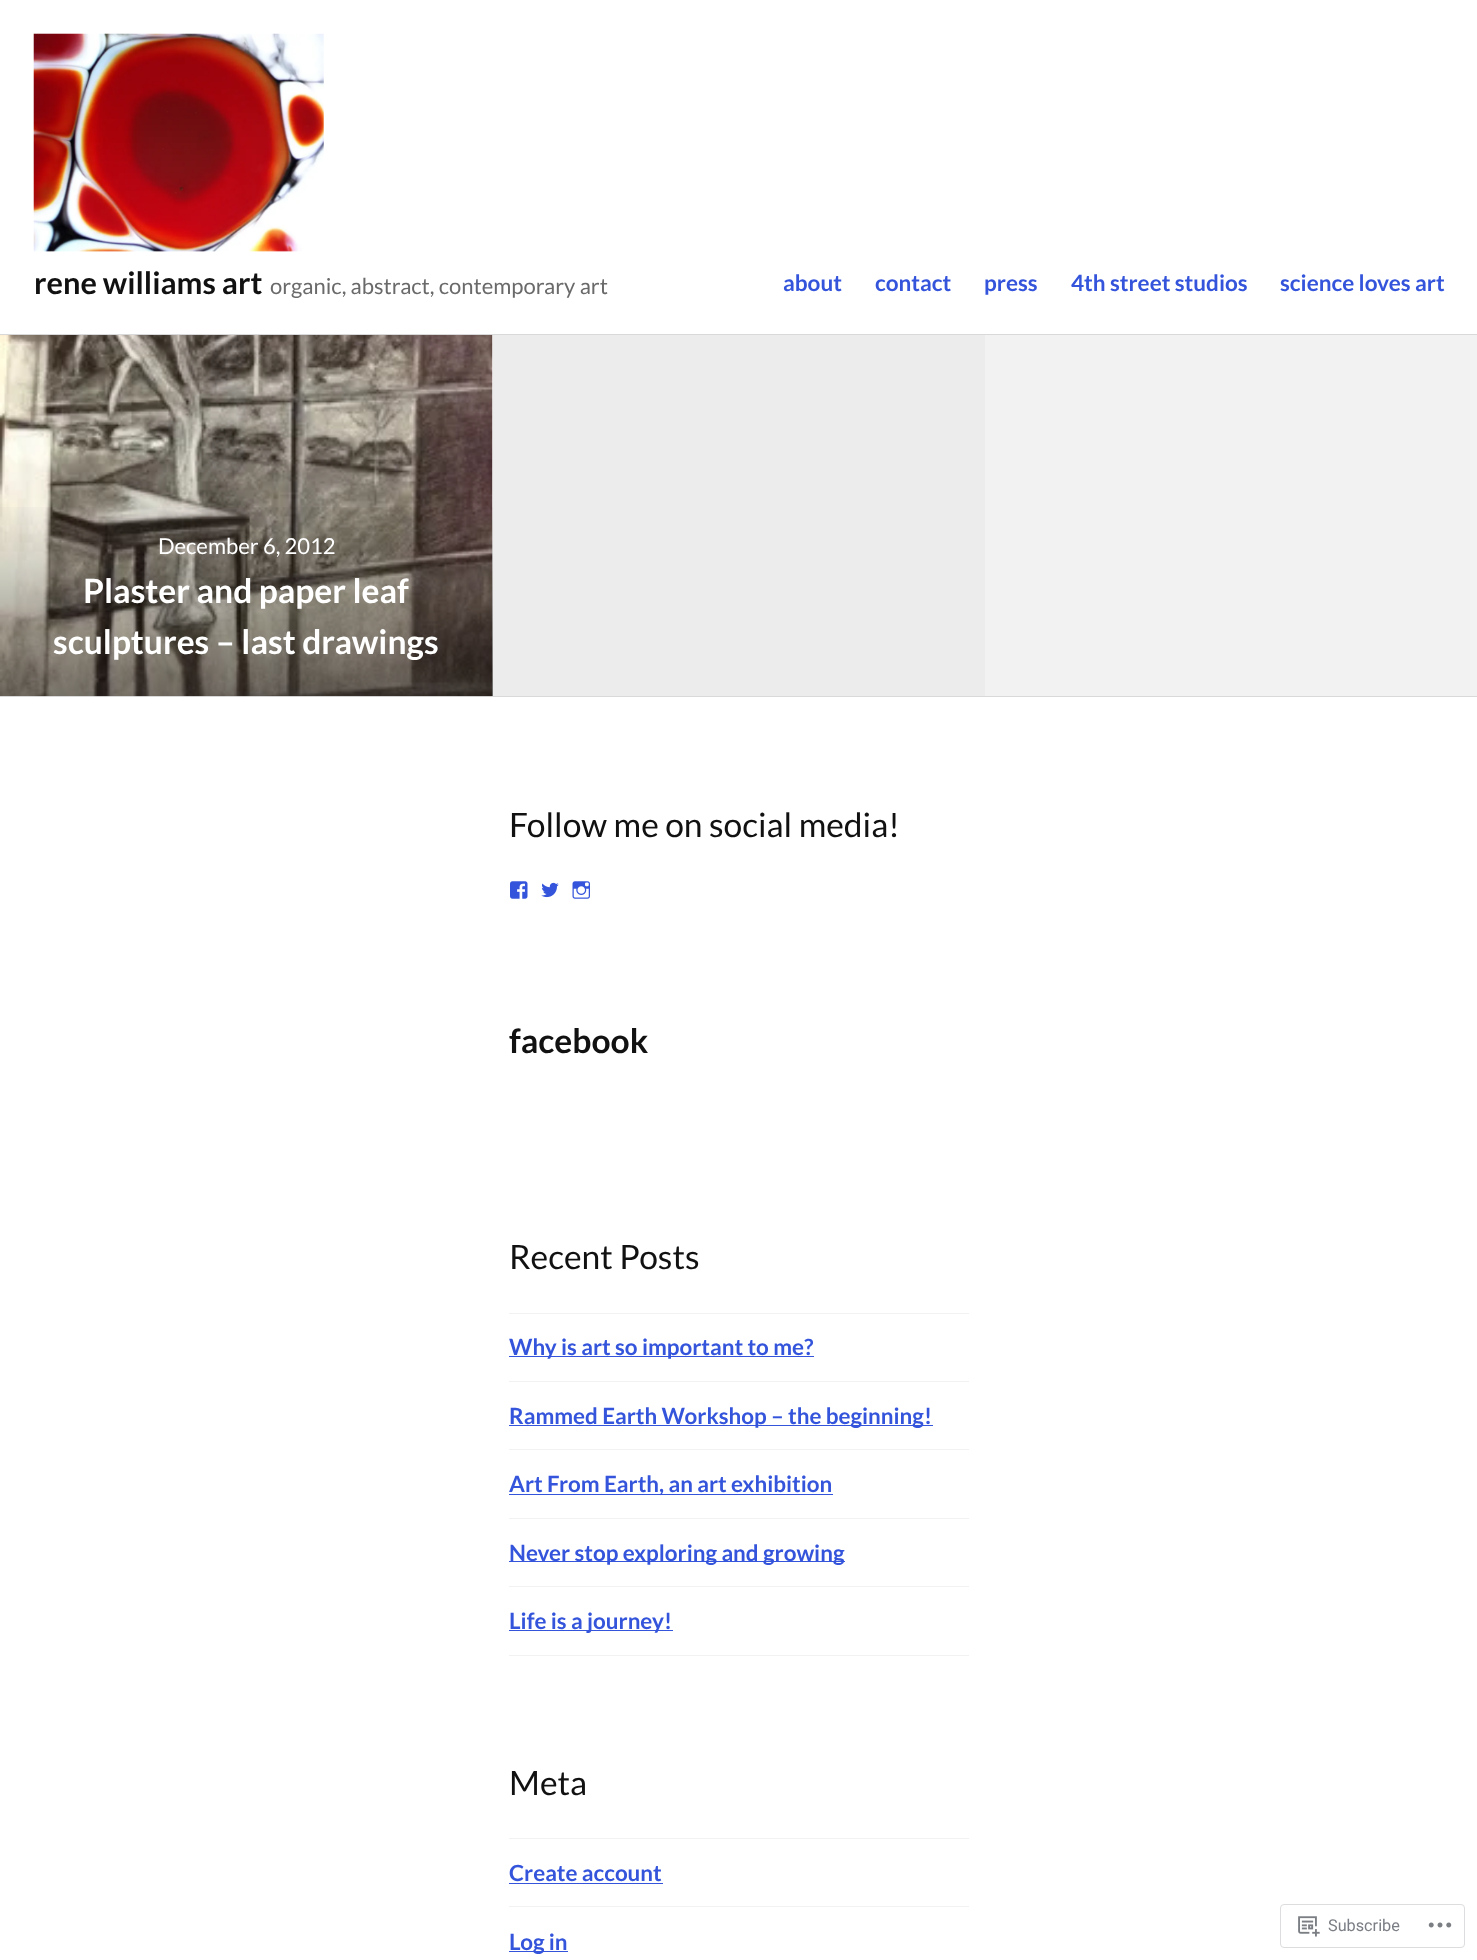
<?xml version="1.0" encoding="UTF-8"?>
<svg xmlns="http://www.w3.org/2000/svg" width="1477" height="1960">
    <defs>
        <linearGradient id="g1" gradientUnits="userSpaceOnUse" x1="246" y1="499" x2="246" y2="696"><stop offset="0" stop-color="#000000" stop-opacity="0"/><stop offset="1" stop-color="#000000" stop-opacity="0.5"/></linearGradient>
    </defs>
    <rect width="100%" height="100%" fill="#FFFFFF"/>
    <rect x="0" y="334" width="1477" height="1" fill="#D9D9D9"/>
    <image x="33" y="33" width="291" height="219" href="img_01.png"/>
    <text x="34" y="294" font-family="Lato" font-size="30.75" font-weight="700" fill="#111111">rene williams art</text>
    <text x="270" y="294" font-family="Lato" font-size="22" fill="#6A6A6A">organic, abstract, contemporary art</text>
    <text x="783" y="291" font-family="Lato" font-size="22.5" font-weight="700" fill="#3455DB">about</text>
    <text x="875" y="291" font-family="Lato" font-size="22.5" font-weight="700" fill="#3455DB">contact</text>
    <text x="984" y="291" font-family="Lato" font-size="22.5" font-weight="700" fill="#3455DB">press</text>
    <text x="1071" y="291" font-family="Lato" font-size="22.5" font-weight="700" fill="#3455DB">4th street studios</text>
    <text x="1280" y="291" font-family="Lato" font-size="22.5" font-weight="700" fill="#3455DB">science loves art</text>
    <rect x="0" y="696" width="1477" height="1" fill="#D9D9D9"/>
    <image x="0" y="335" width="493" height="362" href="img_02.png"/>
    <rect x="0" y="507" width="493" height="189" fill="url(#g1)"/>
    <text x="158" y="554" font-family="Lato" font-size="22" fill="#FFFFFF">December 6, 2012</text>
    <text x="83" y="603" font-family="Lato" font-size="33.6" font-weight="700" fill="#FFFFFF">Plaster and paper leaf</text>
    <text x="53" y="654" font-family="Lato" font-size="33.6" font-weight="700" fill="#FFFFFF">sculptures – last drawings</text>
    <rect x="493" y="335" width="492" height="361" fill="#ECECEC"/>
    <rect x="985" y="335" width="492" height="361" fill="#F2F2F2"/>
    <text x="509" y="837" font-family="Lato" font-size="33.6" fill="#111111">Follow me on social media!</text>
    <image x="510" y="881" width="18" height="18" href="img_03.png"/>
    <image x="541" y="882" width="18" height="16" href="img_04.png"/>
    <image x="572" y="881" width="18" height="18" href="img_05.png"/>
    <text x="509" y="1053" font-family="Lato" font-size="33.6" font-weight="700" fill="#111111">facebook</text>
    <text x="509" y="1269" font-family="Lato" font-size="33.6" fill="#111111">Recent Posts</text>
    <rect x="509" y="1655" width="460" height="1" fill="#F2F2F2"/>
    <rect x="509" y="1313" width="460" height="1" fill="#F2F2F2"/>
    <rect x="509" y="1356" width="305" height="1" fill="#3455DB"/>
    <text x="509" y="1355" font-family="Lato" font-size="22.4" font-weight="700" fill="#3455DB">Why is art so important to me?</text>
    <rect x="509" y="1381" width="460" height="1" fill="#F2F2F2"/>
    <rect x="509" y="1425" width="424" height="1" fill="#3455DB"/>
    <text x="509" y="1424" font-family="Lato" font-size="22.4" font-weight="700" fill="#3455DB">Rammed Earth Workshop – the beginning!</text>
    <rect x="509" y="1449" width="460" height="1" fill="#F2F2F2"/>
    <rect x="509" y="1494" width="324" height="1" fill="#3455DB"/>
    <text x="509" y="1492" font-family="Lato" font-size="22.4" font-weight="700" fill="#3455DB">Art From Earth, an art exhibition</text>
    <rect x="509" y="1518" width="460" height="1" fill="#F2F2F2"/>
    <rect x="509" y="1561" width="336" height="1" fill="#3455DB"/>
    <text x="509" y="1561" font-family="Lato" font-size="22.4" font-weight="700" fill="#3455DB">Never stop exploring and growing</text>
    <rect x="509" y="1586" width="460" height="1" fill="#F2F2F2"/>
    <rect x="509" y="1630" width="164" height="1" fill="#3455DB"/>
    <text x="509" y="1629" font-family="Lato" font-size="22.4" font-weight="700" fill="#3455DB">Life is a journey!</text>
    <text x="509" y="1795" font-family="Lato" font-size="33.6" fill="#111111">Meta</text>
    <rect x="509" y="1838" width="460" height="1" fill="#F2F2F2"/>
    <text x="509" y="1881" font-family="Lato" font-size="22.4" font-weight="700" fill="#3455DB">Create account</text>
    <rect x="509" y="1883" width="154" height="1" fill="#3455DB"/>
    <rect x="509" y="1906" width="460" height="1" fill="#F2F2F2"/>
    <rect x="509" y="1951" width="59" height="1" fill="#3455DB"/>
    <text x="509" y="1950" font-family="Lato" font-size="22.4" font-weight="700" fill="#3455DB">Log in</text>
    <rect x="1280.5" y="1904.5" width="184" height="43" rx="3.5" fill="none" stroke="#DDDDDF"/>
    <image x="1298" y="1916" width="22" height="21" href="img_06.png"/>
    <text x="1328" y="1931" font-family="Roboto" font-size="16.25" fill="#7B7F85">Subscribe</text>
    <image x="1428" y="1922" width="24" height="6" href="img_07.png"/>
</svg>
